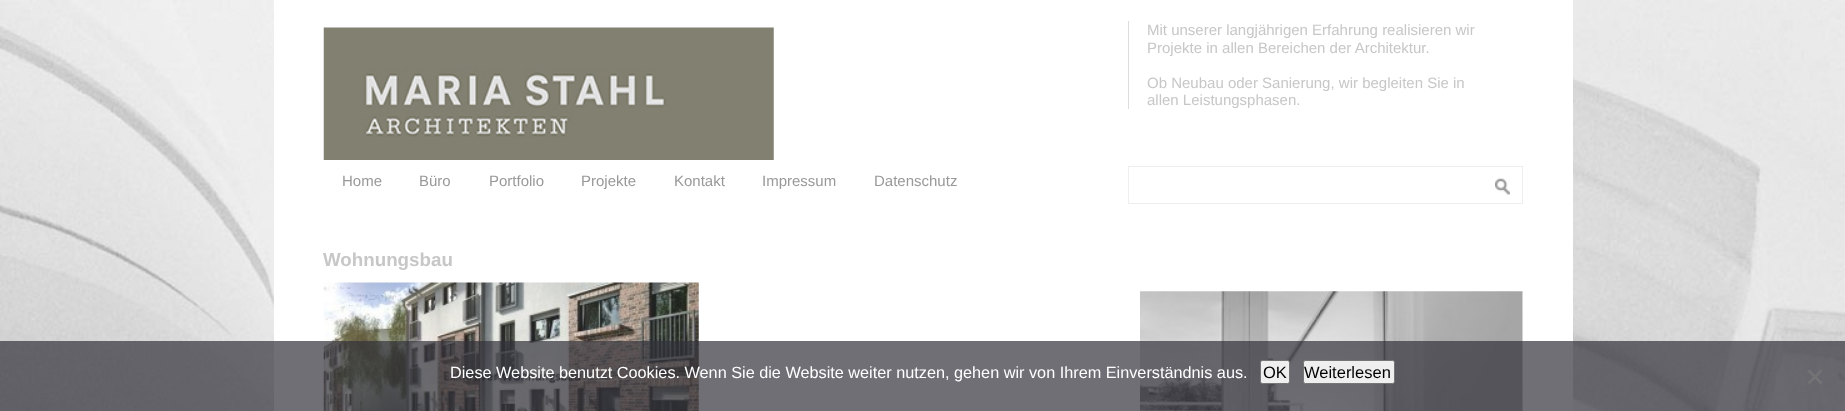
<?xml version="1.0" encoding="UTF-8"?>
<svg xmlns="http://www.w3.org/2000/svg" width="1845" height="411">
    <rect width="100%" height="100%" fill="#FFFFFF"/>
    <image x="0" y="0" width="1845" height="411" href="img_01.png"/>
    <rect x="274" y="0" width="1299" height="411" fill="#FFFFFF"/>
    <image x="323" y="27" width="451" height="133" href="img_02.png"/>
    <rect x="1128" y="21" width="1" height="88" fill="#DDDDDD"/>
    <text font-family="Liberation Sans" font-size="15" fill="#C7C7C7">
        <tspan x="1147" y="35">Mit unserer langjährigen Erfahrung realisieren wir</tspan>
        <tspan x="1147" y="53">Projekte in allen Bereichen der Architektur.</tspan>
    </text>
    <text font-family="Liberation Sans" font-size="15" fill="#C7C7C7">
        <tspan x="1147" y="88">Ob Neubau oder Sanierung, wir begleiten Sie in</tspan>
        <tspan x="1147" y="105">allen Leistungsphasen.</tspan>
    </text>
    <text x="342" y="186" font-family="Liberation Sans" font-size="15" fill="#999999">Home</text>
    <text x="419" y="186" font-family="Liberation Sans" font-size="15" fill="#999999">Büro</text>
    <text x="489" y="186" font-family="Liberation Sans" font-size="15" fill="#999999">Portfolio</text>
    <text x="581" y="186" font-family="Liberation Sans" font-size="15" fill="#999999">Projekte</text>
    <text x="674" y="186" font-family="Liberation Sans" font-size="15" fill="#999999">Kontakt</text>
    <text x="762" y="186" font-family="Liberation Sans" font-size="15" fill="#999999">Impressum</text>
    <text x="874" y="186" font-family="Liberation Sans" font-size="15" fill="#999999">Datenschutz</text>
    <rect x="1128.5" y="166.5" width="394" height="37" fill="none" stroke="#EEEEEE"/>
    <image x="1495" y="178" width="15" height="17" href="img_03.png"/>
    <text x="323" y="266" font-family="Liberation Sans" font-size="18.75" font-weight="700" fill="#C7C7C7">Wohnungsbau</text>
    <image x="323" y="282" width="376" height="129" href="img_04.png"/>
    <image x="1140" y="291" width="383" height="120" href="img_05.png"/>
    <rect x="0" y="341" width="1845" height="70" fill="#32323A" fill-opacity="0.7"/>
    <text x="450" y="378" font-family="Liberation Sans" font-size="16.25" fill="#FFFFFF">Diese Website benutzt Cookies. Wenn Sie die Website weiter nutzen, gehen wir von Ihrem Einverständnis aus.</text>
    <rect x="1260.5" y="360.5" width="29" height="23" rx="2" fill="#EFEFEF" stroke="#767676"/>
    <text x="1263" y="378" font-family="Liberation Sans" font-size="16.5" fill="#000000">OK</text>
    <rect x="1303.5" y="360.5" width="91" height="23" rx="2" fill="#EFEFEF" stroke="#767676"/>
    <text x="1304" y="378" font-family="Liberation Sans" font-size="16.5" fill="#000000">Weiterlesen</text>
    <path d="M 1820.5 369.5 L 1822.5 371 L 1809.5 384.5 L 1807.5 382.5 Z" fill="#808080" fill-opacity="0.5"/>
    <path d="M 1807.5 371 L 1809.5 369.5 L 1822.5 382.5 L 1820.5 384.5 Z" fill="#747476"/>
</svg>
